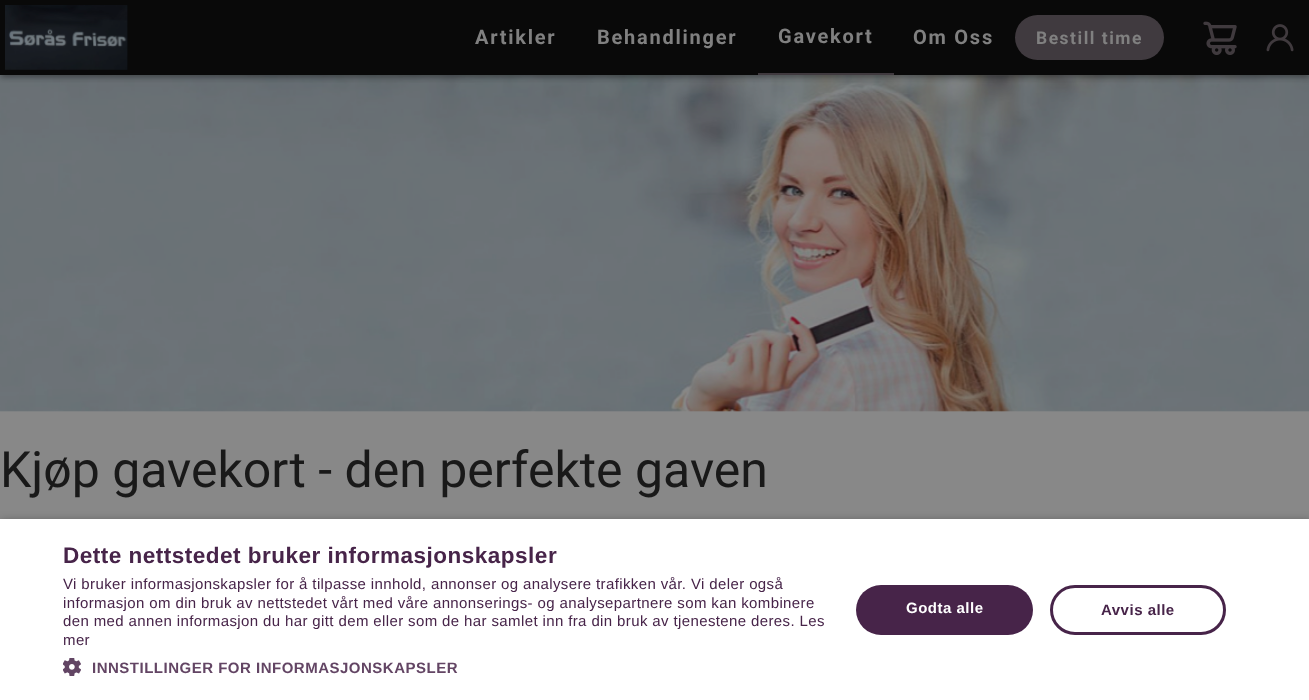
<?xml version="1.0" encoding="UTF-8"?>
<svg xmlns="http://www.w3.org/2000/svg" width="1309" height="700">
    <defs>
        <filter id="blur1" x="-50%" y="-200%" width="200%" height="500%"><feGaussianBlur stdDeviation="5"/></filter>
        <filter id="blur2" x="-50%" y="-200%" width="200%" height="500%"><feGaussianBlur stdDeviation="2.5"/></filter>
        <filter id="blur3" x="-50%" y="-200%" width="200%" height="500%"><feGaussianBlur stdDeviation="2"/></filter>
    </defs>
    <rect width="100%" height="100%" fill="#888888"/>
    <image x="0" y="75" width="1309" height="337" href="img_04.png"/>
    <rect x="0" y="1" width="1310" height="75" fill="#090909" fill-opacity="0.12" filter="url(#blur1)"/>
    <rect x="0" y="4" width="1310" height="75" fill="#090909" fill-opacity="0.14" filter="url(#blur2)"/>
    <rect x="3" y="6" width="1305" height="70" fill="#090909" fill-opacity="0.2" filter="url(#blur3)"/>
    <rect x="0" y="0" width="1309" height="75" fill="#090909"/>
    <image x="5" y="5" width="123" height="65" href="img_01.png"/>
    <text x="475" y="44" font-family="Roboto" font-size="20" font-weight="700" letter-spacing="1.75" fill="#808080">Artikler</text>
    <text x="597" y="44" font-family="Roboto" font-size="20" font-weight="700" letter-spacing="1.75" fill="#808080">Behandlinger</text>
    <rect x="758" y="73" width="136" height="2" fill="#403A3F"/>
    <text x="778" y="43" font-family="Roboto" font-size="20" font-weight="700" letter-spacing="1.75" fill="#808080">Gavekort</text>
    <text x="913" y="44" font-family="Roboto" font-size="20" font-weight="700" letter-spacing="1.75" fill="#808080">Om Oss</text>
    <rect x="1015" y="15" width="149" height="45" rx="22.5" fill="#403A3F"/>
    <text x="1036" y="44" font-family="Roboto" font-size="17.5" font-weight="700" letter-spacing="1.5" fill="#808080">Bestill time</text>
    <image x="1203" y="21" width="34" height="34" href="img_02.png"/>
    <image x="1266" y="24" width="28" height="28" href="img_03.png"/>
    <text x="0" y="487" font-family="Roboto" font-size="50" fill="#191919">Kjøp gavekort - den perfekte gaven</text>
    <rect x="1" y="521" width="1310" height="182" fill="#000000" fill-opacity="0.35" filter="url(#blur1)"/>
    <rect x="0" y="519" width="1309" height="181" fill="#FFFFFF"/>
    <text x="63" y="563" font-family="Liberation Sans" font-size="22.5" font-weight="700" letter-spacing="0.5" fill="#472449">Dette nettstedet bruker informasjonskapsler</text>
    <text font-family="Liberation Sans" font-size="15" letter-spacing="0.38" fill="#472449">
        <tspan x="63" y="589">Vi bruker informasjonskapsler for å tilpasse innhold, annonser og analysere trafikken vår. Vi deler også</tspan>
        <tspan x="63" y="608">informasjon om din bruk av nettstedet vårt med våre annonserings- og analysepartnere som kan kombinere</tspan>
        <tspan x="63" y="626">den med annen informasjon du har gitt dem eller som de har samlet inn fra din bruk av tjenestene deres. Les</tspan>
        <tspan x="63" y="645">mer</tspan>
    </text>
    <image x="63" y="658" width="18" height="18" href="img_05.png"/>
    <text x="92" y="673" font-family="Liberation Sans" font-size="15" font-weight="700" letter-spacing="0.5" fill="#634564">INNSTILLINGER FOR INFORMASJONSKAPSLER</text>
    <rect x="856" y="585" width="177" height="50" rx="25" fill="#472449"/>
    <text x="906" y="613" font-family="Liberation Sans" font-size="15" font-weight="700" letter-spacing="0.5" fill="#FFFFFF">Godta alle</text>
    <rect x="1051.5" y="586.5" width="173" height="47" rx="23.5" fill="none" stroke="#472449" stroke-width="3"/>
    <text x="1101" y="615" font-family="Liberation Sans" font-size="15" font-weight="700" letter-spacing="0.5" fill="#472449">Avvis alle</text>
</svg>
